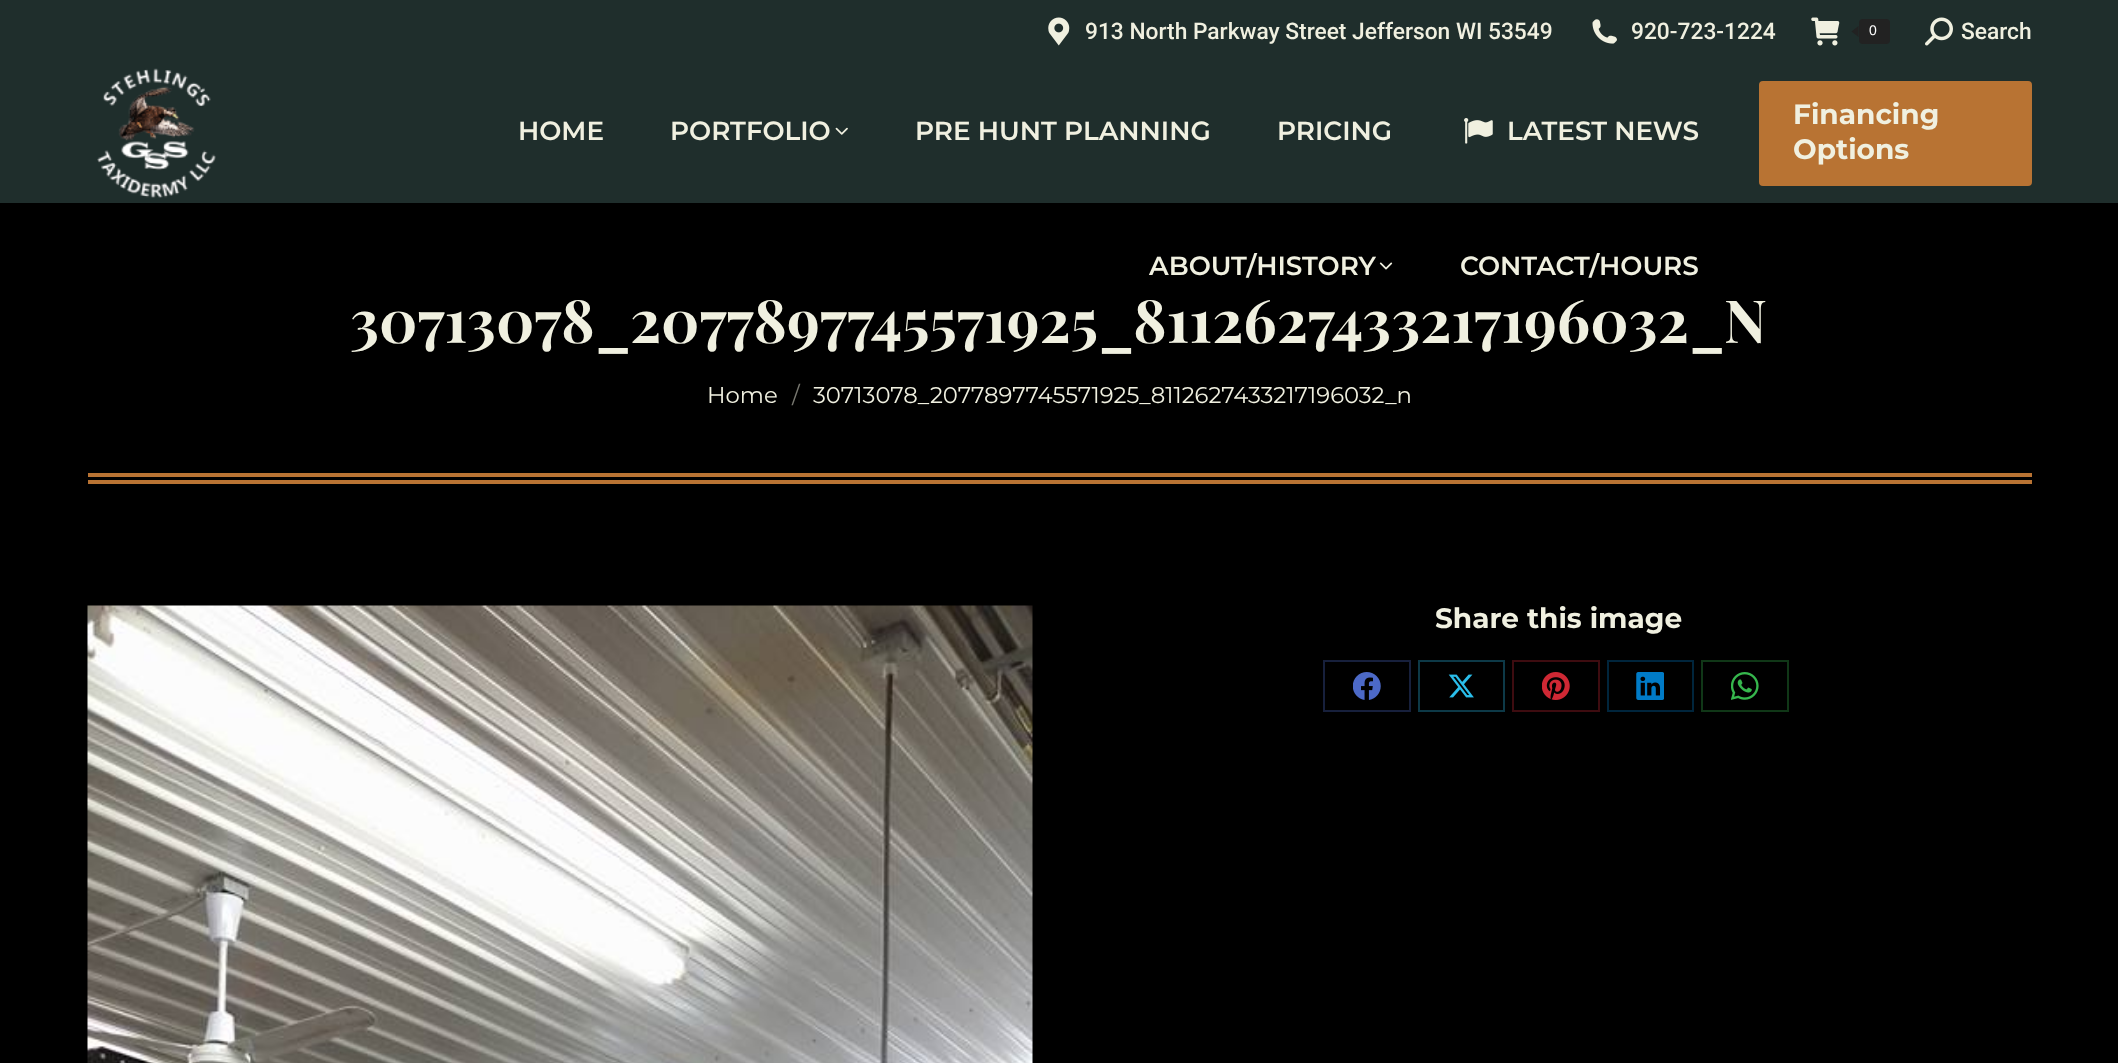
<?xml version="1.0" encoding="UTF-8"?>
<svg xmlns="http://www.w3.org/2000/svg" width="2118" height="1063">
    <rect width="100%" height="100%" fill="#000000"/>
    <rect x="0" y="0" width="2118" height="203" fill="#1F2E2C"/>
    <image x="1048" y="17" width="22" height="29" href="img_01.png"/>
    <text x="1085" y="39" font-family="Roboto" font-size="22.75" font-weight="500" fill="#F0F0E0">913 North Parkway Street Jefferson WI 53549</text>
    <image x="1592" y="19" width="25" height="25" href="img_02.png"/>
    <text x="1631" y="39" font-family="Roboto" font-size="22.75" font-weight="500" fill="#F0F0E0">920-723-1224</text>
    <image x="1811" y="17" width="29" height="29" href="img_03.png"/>
    <rect x="1859" y="19" width="31" height="25" rx="4" fill="#222222"/>
    <path d="M 1858.5 26 V 37 L 1851.5 31.5 Z" fill="#222222"/>
    <text x="1869" y="35" font-family="Liberation Sans" font-size="14" fill="#FFFFFF">0</text>
    <image x="1925" y="17" width="28" height="29" href="img_04.png"/>
    <text x="1961" y="39" font-family="Roboto" font-size="22.75" font-weight="500" fill="#F0F0E0">Search</text>
    <image x="97" y="68" width="119" height="130" href="img_05.png"/>
    <text x="518" y="140" font-family="Montserrat" font-size="26.25" font-weight="600" fill="#F0F0E0">HOME</text>
    <text x="670" y="140" font-family="Montserrat" font-size="26.25" font-weight="600" fill="#F0F0E0">PORTFOLIO</text>
    <image x="835" y="127" width="13" height="8" href="img_06.png"/>
    <text x="915" y="140" font-family="Montserrat" font-size="26.25" font-weight="600" fill="#F0F0E0">PRE HUNT PLANNING</text>
    <text x="1277" y="140" font-family="Montserrat" font-size="26.25" font-weight="600" fill="#F0F0E0">PRICING</text>
    <image x="1464" y="118" width="29" height="26" href="img_07.png"/>
    <text x="1507" y="140" font-family="Montserrat" font-size="26.25" font-weight="600" fill="#F0F0E0">LATEST NEWS</text>
    <text x="1149" y="275" font-family="Montserrat" font-size="26.25" font-weight="600" fill="#F0F0E0">ABOUT/HISTORY</text>
    <image x="1379" y="262" width="14" height="8" href="img_08.png"/>
    <text x="1460" y="275" font-family="Montserrat" font-size="26.25" font-weight="600" fill="#F0F0E0">CONTACT/HOURS</text>
    <rect x="1762.5" y="84.5" width="266" height="98" rx="0.5" fill="#B87333" stroke="#B87333" stroke-width="7"/>
    <text font-family="Montserrat" font-size="28" font-weight="700" fill="#F0F0E0">
        <tspan x="1793" y="124">Financing</tspan>
        <tspan x="1793" y="159">Options</tspan>
    </text>
    <text x="350" y="343" font-family="Playfair Display" font-size="59.5" font-weight="700" fill="#F0F0E0">30713078_2077897745571925_8112627433217196032_N</text>
    <text x="707" y="403" font-family="Montserrat" font-size="22.75" fill="#F0F0E0">Home</text>
    <text x="792" y="403" font-family="Montserrat" font-size="22.75" fill="#787870">/</text>
    <text x="813" y="403" font-family="Montserrat" font-size="22.75" fill="#F0F0E0">30713078_2077897745571925_8112627433217196032_n</text>
    <rect x="88" y="473" width="1944" height="4" fill="#B87333"/>
    <rect x="88" y="480" width="1944" height="4" fill="#B87333"/>
    <image x="87" y="605" width="946" height="458" href="img_09.png"/>
    <text x="1435" y="628" font-family="Montserrat" font-size="28" font-weight="700" fill="#F0F0E0">Share this image</text>
    <rect x="1324" y="661" width="86" height="50" fill="none" stroke="#17203C" stroke-width="2"/>
    <image x="1353" y="672" width="28" height="28" href="img_10.png"/>
    <rect x="1419" y="661" width="85" height="50" fill="none" stroke="#0D3947" stroke-width="2"/>
    <image x="1448" y="674" width="26" height="24" href="img_11.png"/>
    <rect x="1513" y="661" width="86" height="50" fill="none" stroke="#3E0C10" stroke-width="2"/>
    <image x="1542" y="672" width="28" height="28" href="img_12.png"/>
    <rect x="1608" y="661" width="85" height="50" fill="none" stroke="#00253C" stroke-width="2"/>
    <image x="1636" y="672" width="28" height="28" href="img_13.png"/>
    <rect x="1702" y="661" width="86" height="50" fill="none" stroke="#103717" stroke-width="2"/>
    <image x="1731" y="672" width="28" height="28" href="img_14.png"/>
</svg>
